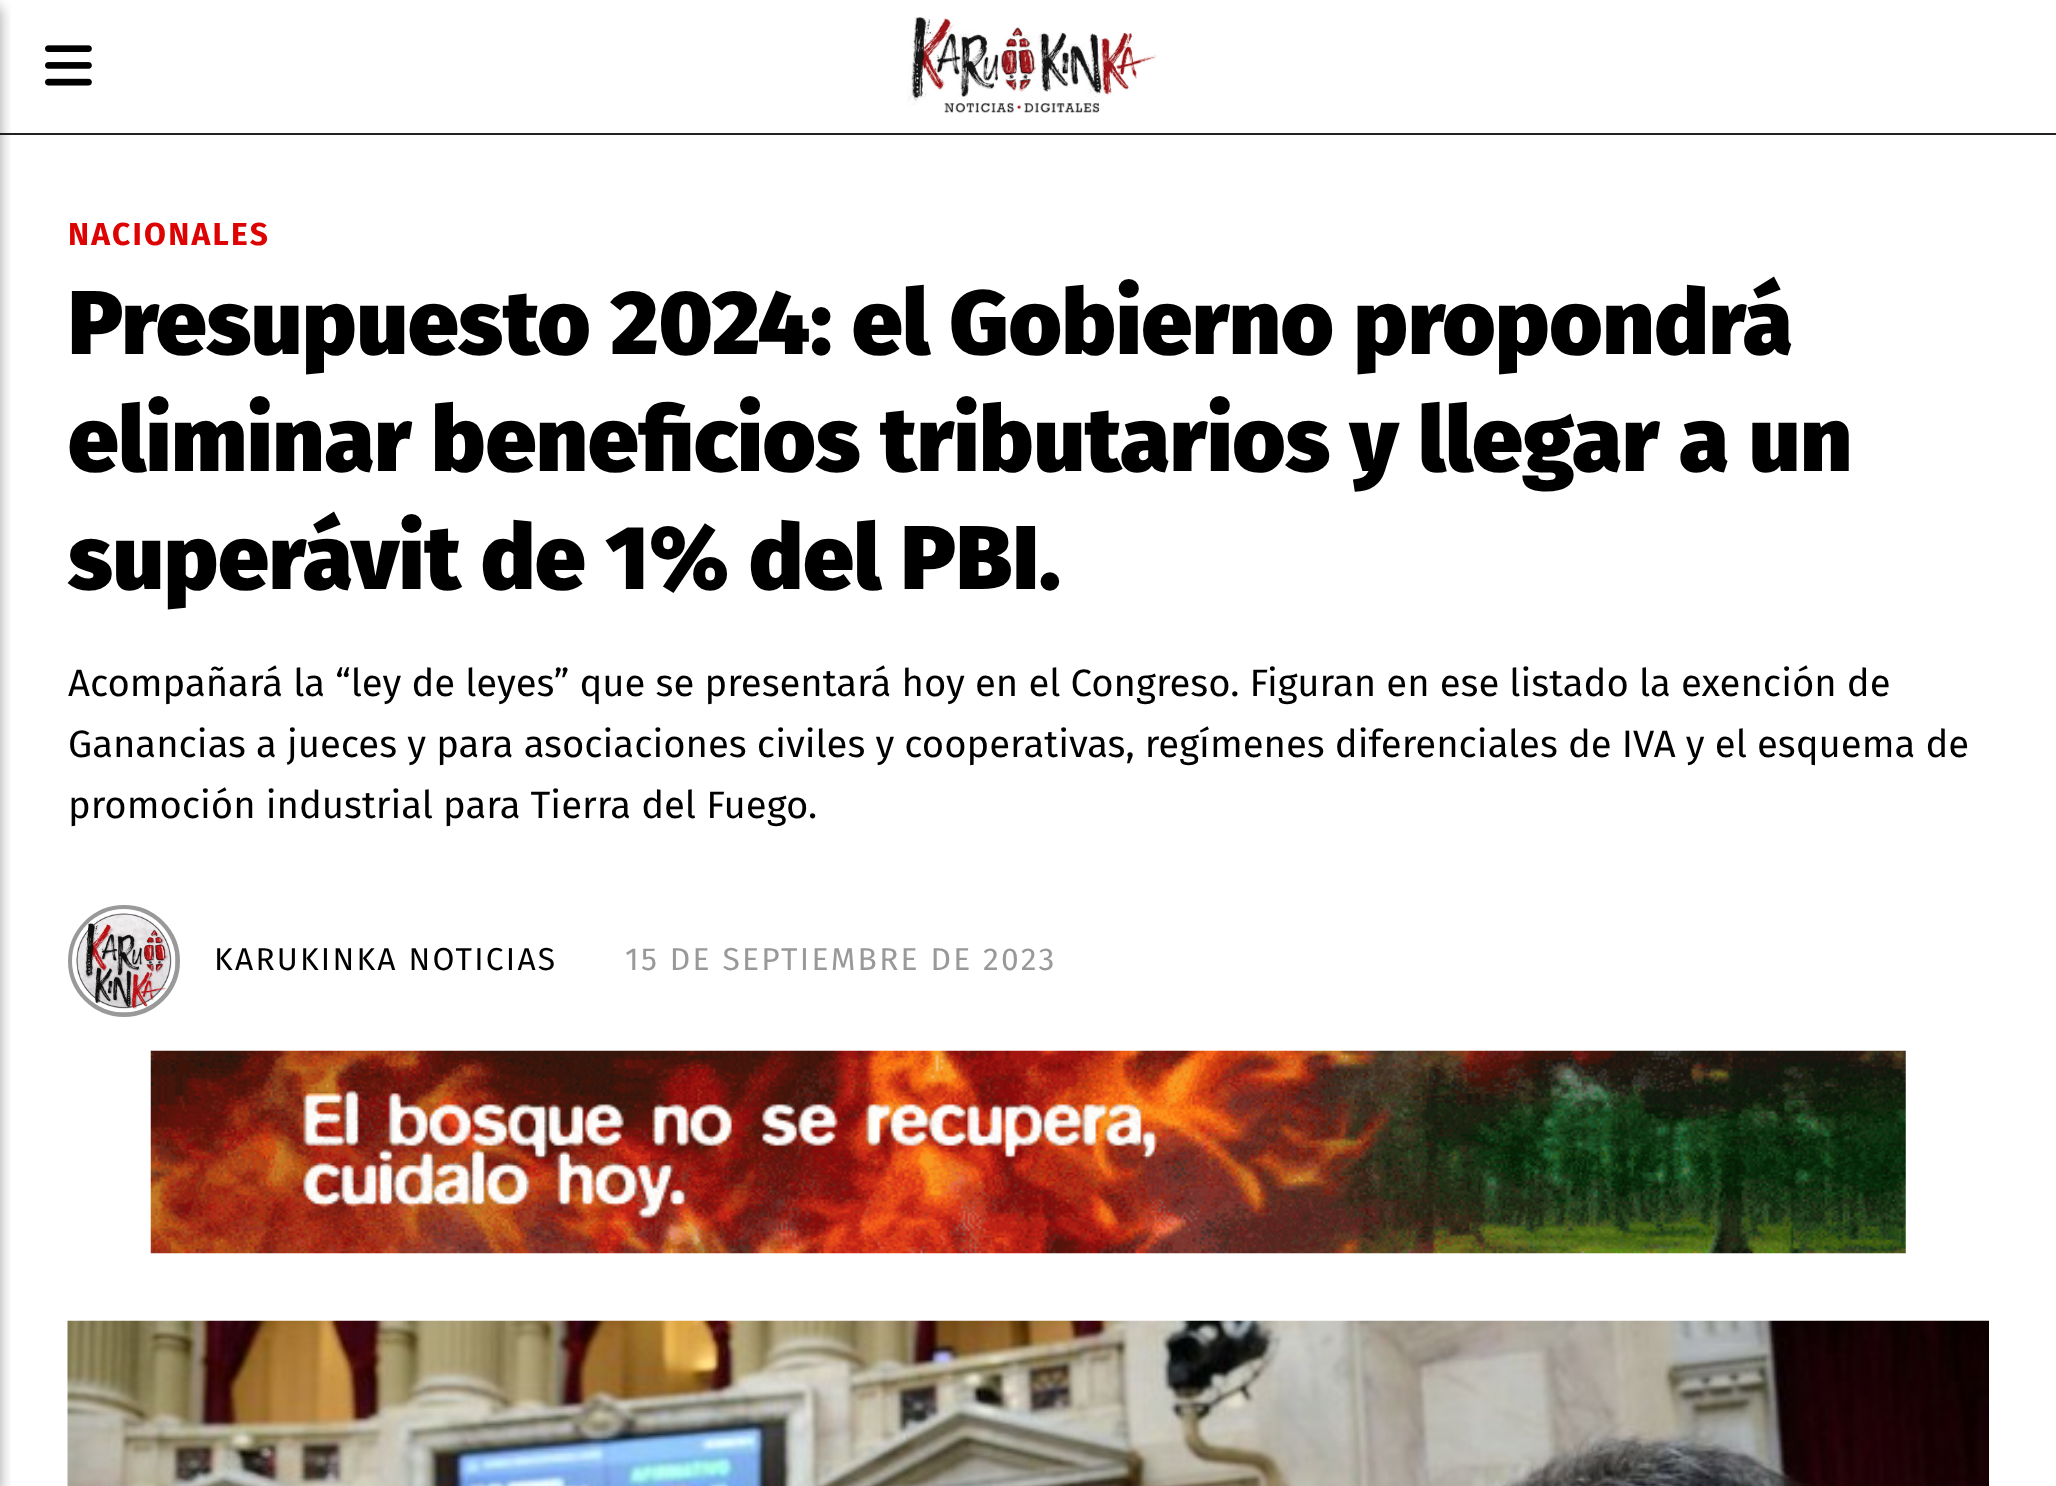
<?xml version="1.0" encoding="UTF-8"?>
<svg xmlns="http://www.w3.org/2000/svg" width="2056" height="1486">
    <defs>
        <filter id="blur1" x="-50%" y="-200%" width="200%" height="500%"><feGaussianBlur stdDeviation="7"/></filter>
    </defs>
    <rect width="100%" height="100%" fill="#FFFFFF"/>
    <rect x="0" y="133" width="2056" height="2" fill="#222222"/>
    <rect x="-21" y="7" width="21" height="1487" fill="#000000" fill-opacity="0.23" filter="url(#blur1)"/>
    <rect x="-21" y="7" width="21" height="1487" fill="#000000" fill-opacity="0.16" filter="url(#blur1)"/>
    <image x="45" y="45" width="47" height="41" href="img_01.png"/>
    <image x="907" y="17" width="250" height="96" href="img_02.png"/>
    <text x="68" y="245" font-family="Fira Sans" font-size="31.75" font-weight="700" letter-spacing="2.25" fill="#DE0303">NACIONALES</text>
    <text font-family="Fira Sans" font-size="90.6" font-weight="900" fill="#000000">
        <tspan x="68" y="354">Presupuesto 2024: el Gobierno propondrá</tspan>
        <tspan x="68" y="471">eliminar beneficios tributarios y llegar a un</tspan>
        <tspan x="68" y="589">superávit de 1% del PBI.</tspan>
    </text>
    <text font-family="Fira Sans" font-size="38.25" fill="#000000">
        <tspan x="68" y="696">Acompañará la “ley de leyes” que se presentará hoy en el Congreso. Figuran en ese listado la exención de</tspan>
        <tspan x="68" y="757">Ganancias a jueces y para asociaciones civiles y cooperativas, regímenes diferenciales de IVA y el esquema de</tspan>
        <tspan x="68" y="818">promoción industrial para Tierra del Fuego.</tspan>
    </text>
    <circle cx="124" cy="961" r="53.5" fill="none" stroke="#999999" stroke-width="5"/>
    <image x="72" y="909" width="104" height="104" href="img_03.png"/>
    <text x="214" y="970" font-family="Fira Sans" font-size="31.75" letter-spacing="2.25" fill="#000000">KARUKINKA NOTICIAS</text>
    <text x="625" y="970" font-family="Fira Sans" font-size="31.75" letter-spacing="2.25" fill="#999999">15 DE SEPTIEMBRE DE 2023</text>
    <image x="150" y="1050" width="1756" height="204" href="img_04.png"/>
    <image x="67" y="1320" width="1922" height="166" href="img_05.png"/>
</svg>
